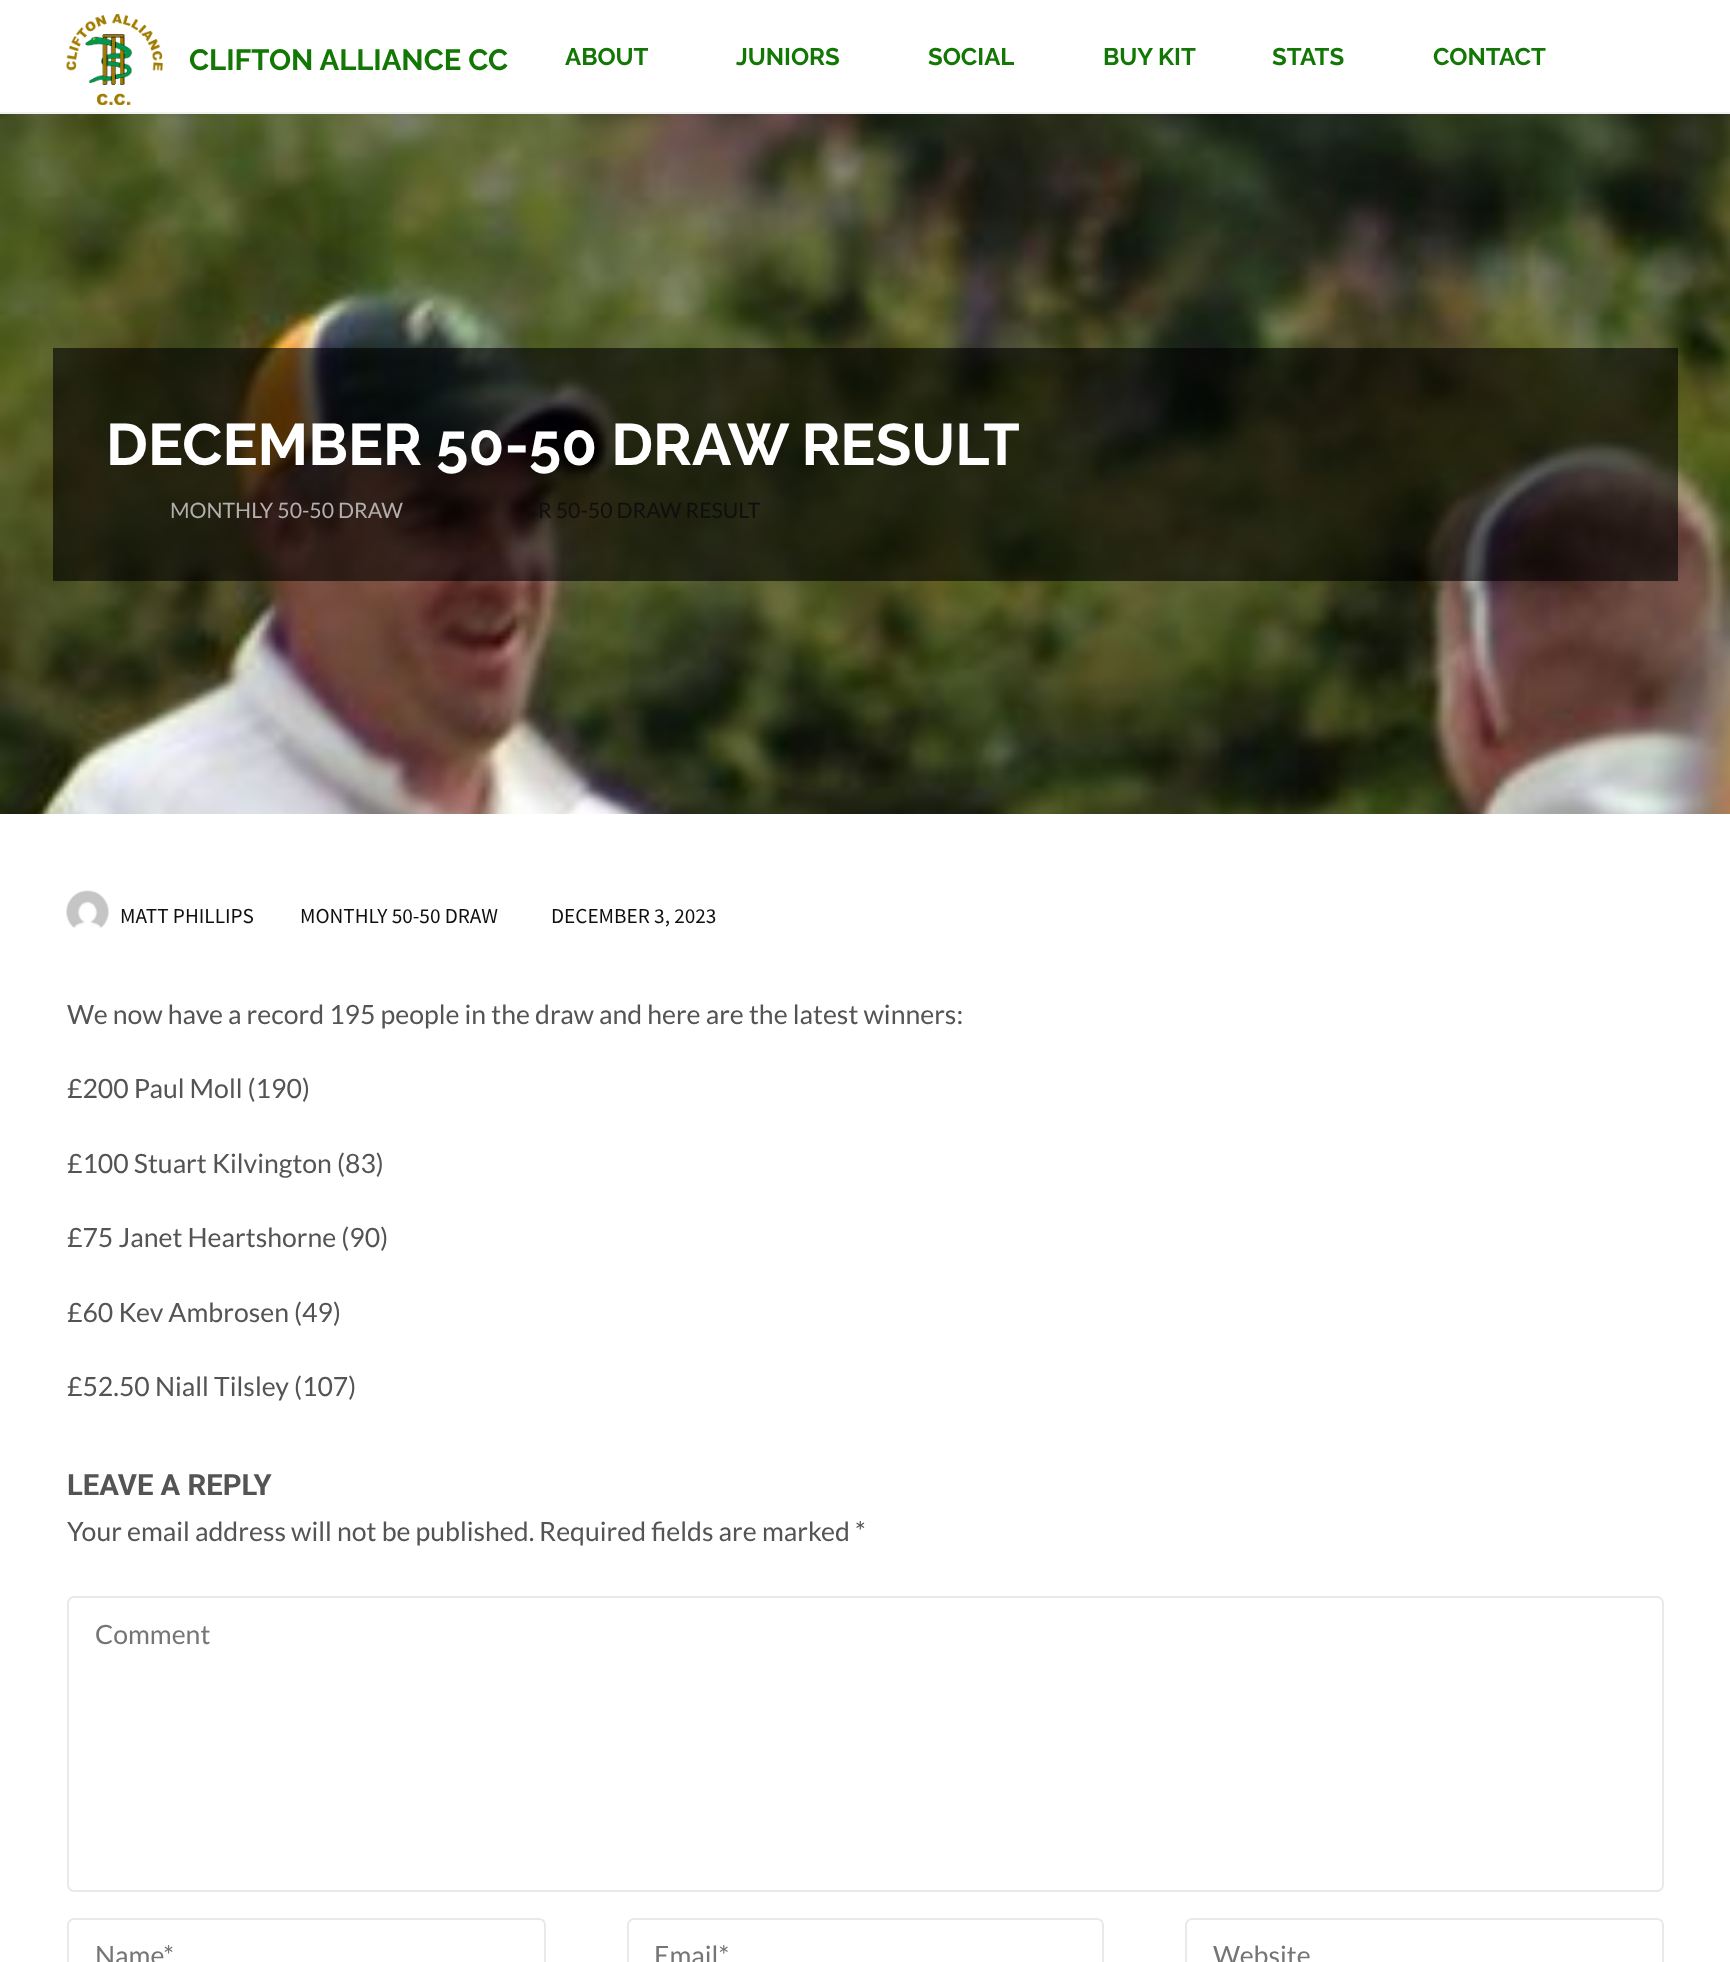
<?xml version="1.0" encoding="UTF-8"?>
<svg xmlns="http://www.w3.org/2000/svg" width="1730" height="1962">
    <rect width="100%" height="100%" fill="#FFFFFF"/>
    <rect x="0" y="112" width="1730" height="2" fill="#F2F2F2"/>
    <image x="66" y="14" width="97" height="91" href="img_01.png"/>
    <text x="189" y="70" font-family="Raleway" font-size="29.25" font-weight="700" fill="#137705">CLIFTON ALLIANCE CC</text>
    <text x="565" y="65" font-family="Raleway" font-size="24" font-weight="700" fill="#137705">ABOUT</text>
    <text x="736" y="65" font-family="Raleway" font-size="24" font-weight="700" fill="#137705">JUNIORS</text>
    <text x="928" y="65" font-family="Raleway" font-size="24" font-weight="700" fill="#137705">SOCIAL</text>
    <text x="1103" y="65" font-family="Raleway" font-size="24" font-weight="700" fill="#137705">BUY KIT</text>
    <text x="1272" y="65" font-family="Raleway" font-size="24" font-weight="700" fill="#137705">STATS</text>
    <text x="1433" y="65" font-family="Raleway" font-size="24" font-weight="700" fill="#137705">CONTACT</text>
    <image x="0" y="114" width="1730" height="700" href="img_02.png"/>
    <rect x="53" y="348" width="1625" height="233" fill="#000000" fill-opacity="0.6"/>
    <text x="106" y="465" font-family="Raleway" font-size="58.5" font-weight="700" fill="#FFFFFF">DECEMBER 50-50 DRAW RESULT</text>
    <text x="170" y="518" font-family="Lato" font-size="21.25" fill="#B2AFAC">MONTHLY 50-50 DRAW</text>
    <text x="538" y="518" font-family="Lato" font-size="21.25" fill="#0F0F0F">R 50-50 DRAW RESULT</text>
    <image x="66" y="890" width="43" height="38" href="img_03.png"/>
    <text x="120" y="923" font-family="Source Sans Pro" font-size="21.25" fill="#0F0F0F">MATT PHILLIPS</text>
    <text x="300" y="923" font-family="Source Sans Pro" font-size="21.25" fill="#0F0F0F">MONTHLY 50-50 DRAW</text>
    <text x="551" y="923" font-family="Source Sans Pro" font-size="21.25" fill="#0F0F0F">DECEMBER 3, 2023</text>
    <text x="67" y="1024" font-family="Lato" font-size="26.6" fill="#545454">We now have a record 195 people in the draw and here are the latest winners:</text>
    <text x="67" y="1098" font-family="Lato" font-size="26.6" fill="#545454">£200 Paul Moll (190)</text>
    <text x="67" y="1173" font-family="Lato" font-size="26.6" fill="#545454">£100 Stuart Kilvington (83)</text>
    <text x="67" y="1247" font-family="Lato" font-size="26.6" fill="#545454">£75 Janet Heartshorne (90)</text>
    <text x="67" y="1322" font-family="Lato" font-size="26.6" fill="#545454">£60 Kev Ambrosen (49)</text>
    <text x="67" y="1396" font-family="Lato" font-size="26.6" fill="#545454">£52.50 Niall Tilsley (107)</text>
    <text x="67" y="1495" font-family="Roboto" font-size="29.25" font-weight="700" fill="#545454">LEAVE A REPLY</text>
    <text x="67" y="1541" font-family="Lato" font-size="26.6" fill="#545454">Your email address will not be published.</text>
    <text x="539" y="1541" font-family="Lato" font-size="26.6" fill="#545454">Required fields are marked *</text>
    <rect x="68" y="1597" width="1595" height="294" rx="6" fill="none" stroke="#E9E9E9" stroke-width="2"/>
    <text x="95" y="1644" font-family="Lato" font-size="26.6" fill="#757575">Comment</text>
    <rect x="68" y="1919" width="477" height="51" rx="6" fill="none" stroke="#E9E9E9" stroke-width="2"/>
    <text x="95" y="1965" font-family="Lato" font-size="26.6" fill="#757575">Name*</text>
    <rect x="628" y="1919" width="475" height="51" rx="6" fill="none" stroke="#E9E9E9" stroke-width="2"/>
    <text x="654" y="1965" font-family="Lato" font-size="26.6" fill="#757575">Email*</text>
    <rect x="1186" y="1919" width="477" height="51" rx="6" fill="none" stroke="#E9E9E9" stroke-width="2"/>
    <text x="1213" y="1965" font-family="Lato" font-size="26.6" fill="#757575">Website</text>
</svg>
